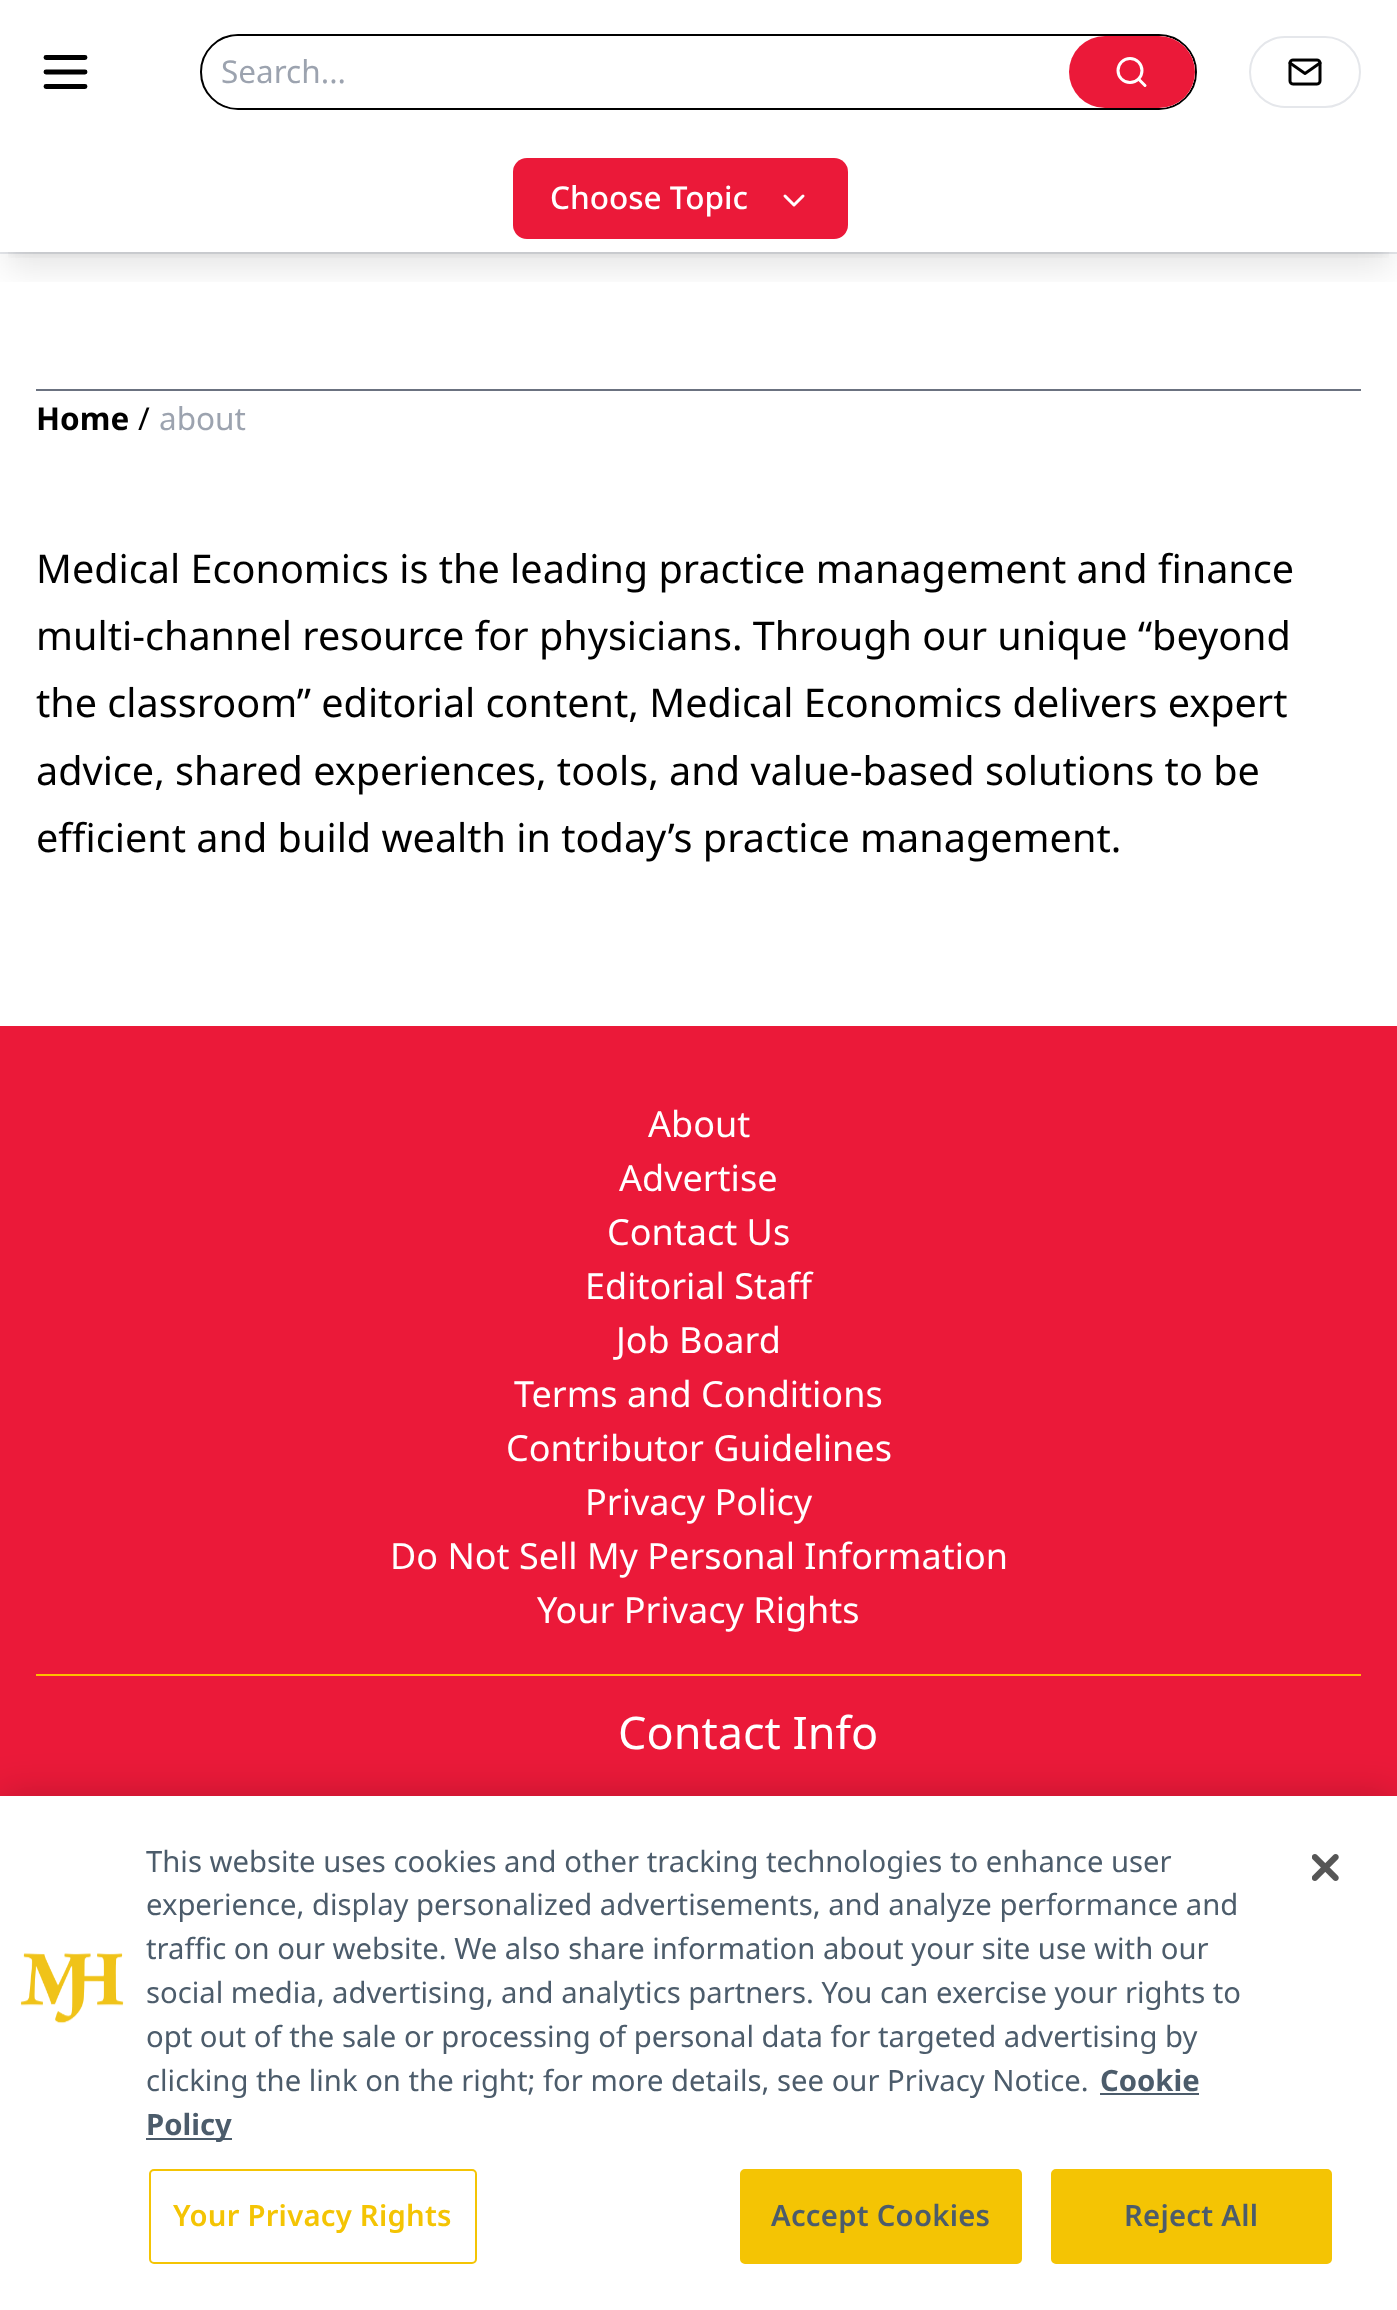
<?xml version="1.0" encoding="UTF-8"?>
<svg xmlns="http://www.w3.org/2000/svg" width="1397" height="2310">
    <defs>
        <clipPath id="clip1"><rect x="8" y="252" width="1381" height="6"/></clipPath>
        <filter id="blur1" x="-50%" y="-200%" width="200%" height="500%"><feGaussianBlur stdDeviation="7"/></filter>
        <clipPath id="clip2"><rect x="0" y="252" width="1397" height="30"/></clipPath>
        <filter id="blur2" x="-50%" y="-200%" width="200%" height="500%"><feGaussianBlur stdDeviation="17"/></filter>
        <filter id="blur3" x="-50%" y="-200%" width="200%" height="500%"><feGaussianBlur stdDeviation="20"/></filter>
    </defs>
    <rect width="100%" height="100%" fill="#FFFFFF"/>
    <rect x="0" y="252" width="1397" height="2" fill="#E5E7EB"/>
    <path d="M 46 57.5 H 85 M 46 72 H 85 M 46 86.5 H 85" fill="none" stroke="#000000" stroke-width="4.9" stroke-linecap="round" stroke-linejoin="round"/>
    <rect x="201" y="35" width="995" height="74" rx="37" fill="none" stroke="#000000" stroke-width="2"/>
    <rect x="203" y="36" width="992" height="72" rx="36" fill="#FFFFFF"/>
    <text x="221" y="83" font-family="Noto Sans" font-size="31.5" fill="#9CA3AF">Search...</text>
    <rect x="1069" y="36" width="126" height="72" rx="36" fill="#EB1939"/>
    <circle cx="1130" cy="70.5" r="12" fill="none" stroke="#FFFFFF" stroke-width="3"/>
    <path d="M 1145 85.5 L 1138.5 79" fill="none" stroke="#FFFFFF" stroke-width="3" stroke-linecap="round" stroke-linejoin="round"/>
    <rect x="1250" y="37" width="110" height="70" rx="35" fill="none" stroke="#E5E7EB" stroke-width="2"/>
    <image x="1288" y="58" width="34" height="28" href="img_01.png"/>
    <g clip-path="url(#clip1)">
        <rect x="9" y="162" width="1379" height="90" fill="#000000" fill-opacity="0.1" filter="url(#blur1)"/>
    </g>
    <g clip-path="url(#clip2)">
        <rect x="7" y="173" width="1384" height="95" fill="#000000" fill-opacity="0.1" filter="url(#blur2)"/>
    </g>
    <rect x="513" y="158" width="335" height="81" rx="14" fill="#EB1939"/>
    <text x="550" y="209" font-family="Noto Sans" font-size="31.5" font-weight="500" fill="#FFFFFF">Choose Topic</text>
    <path d="M 785 196 L 794 205 L 803 196" fill="none" stroke="#FFFFFF" stroke-width="3" stroke-linecap="round" stroke-linejoin="round"/>
    <rect x="36" y="389" width="1325" height="2" fill="#6B7280"/>
    <text x="36" y="430" font-family="Noto Sans" font-size="31.5" font-weight="700" fill="#000000">Home</text>
    <text x="138" y="430" font-family="Noto Sans" font-size="31.5" fill="#000000">/</text>
    <text x="159" y="430" font-family="Noto Sans" font-size="31.5" fill="#9CA3AF">about</text>
    <text font-family="Noto Sans" font-size="39.6" fill="#000000">
        <tspan x="36" y="583">Medical Economics is the leading practice management and finance</tspan>
        <tspan x="36" y="650">multi-channel resource for physicians. Through our unique “beyond</tspan>
        <tspan x="36" y="717">the classroom” editorial content, Medical Economics delivers expert</tspan>
        <tspan x="36" y="785">advice, shared experiences, tools, and value-based solutions to be</tspan>
        <tspan x="36" y="852">efficient and build wealth in today’s practice management.</tspan>
    </text>
    <rect x="0" y="1026" width="1397" height="770" fill="#EB1939"/>
    <text x="648" y="1137" font-family="Noto Sans" font-size="36" fill="#FFFFFF">About</text>
    <text x="619" y="1191" font-family="Noto Sans" font-size="36" fill="#FFFFFF">Advertise</text>
    <text x="607" y="1245" font-family="Noto Sans" font-size="36" fill="#FFFFFF">Contact Us</text>
    <text x="585" y="1299" font-family="Noto Sans" font-size="36" fill="#FFFFFF">Editorial Staff</text>
    <text x="616" y="1353" font-family="Noto Sans" font-size="36" fill="#FFFFFF">Job Board</text>
    <text x="514" y="1407" font-family="Noto Sans" font-size="36" fill="#FFFFFF">Terms and Conditions</text>
    <text x="506" y="1461" font-family="Noto Sans" font-size="36" fill="#FFFFFF">Contributor Guidelines</text>
    <text x="585" y="1515" font-family="Noto Sans" font-size="36" fill="#FFFFFF">Privacy Policy</text>
    <text x="390" y="1569" font-family="Noto Sans" font-size="36" fill="#FFFFFF">Do Not Sell My Personal Information</text>
    <text x="537" y="1623" font-family="Noto Sans" font-size="36" fill="#FFFFFF">Your Privacy Rights</text>
    <rect x="36" y="1674" width="1325" height="2" fill="#FFBF00"/>
    <text x="618" y="1749" font-family="Noto Sans" font-size="45" fill="#FFFFFF">Contact Info</text>
    <rect x="0" y="1796" width="1397" height="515" fill="#000000" fill-opacity="0.2" filter="url(#blur3)"/>
    <rect x="0" y="1796" width="1397" height="514" fill="#FFFFFF"/>
    <image x="20" y="1953" width="104" height="71" href="img_02.png"/>
    <text font-family="Noto Sans" font-size="29.25" fill="#4C5C6B">
        <tspan x="146" y="1872">This website uses cookies and other tracking technologies to enhance user</tspan>
        <tspan x="146" y="1915">experience, display personalized advertisements, and analyze performance and</tspan>
        <tspan x="146" y="1959">traffic on our website. We also share information about your site use with our</tspan>
        <tspan x="146" y="2003">social media, advertising, and analytics partners. You can exercise your rights to</tspan>
        <tspan x="146" y="2047">opt out of the sale or processing of personal data for targeted advertising by</tspan>
        <tspan x="146" y="2091">clicking the link on the right; for more details, see our Privacy Notice.</tspan>
    </text>
    <text x="1100" y="2091" font-family="Noto Sans" font-size="29.25" font-weight="700" fill="#4C5C6B">Cookie</text>
    <rect x="1100" y="2093" width="99" height="2" fill="#4C5C6B"/>
    <rect x="146" y="2138" width="86" height="2" fill="#4C5C6B"/>
    <text x="146" y="2135" font-family="Noto Sans" font-size="29.25" font-weight="700" fill="#4C5C6B">Policy</text>
    <rect x="150" y="2170" width="326" height="93" rx="4" fill="none" stroke="#F4C404" stroke-width="2"/>
    <text x="173" y="2226" font-family="Noto Sans" font-size="29.25" font-weight="600" letter-spacing="0.25" fill="#F4C404">Your Privacy Rights</text>
    <rect x="741" y="2170" width="280" height="93" rx="4" fill="#F4C404" stroke="#F4C404" stroke-width="2"/>
    <text x="771" y="2226" font-family="Noto Sans" font-size="29.25" font-weight="600" letter-spacing="0.25" fill="#4C5C6B">Accept Cookies</text>
    <rect x="1052" y="2170" width="279" height="93" rx="4" fill="#F4C404" stroke="#F4C404" stroke-width="2"/>
    <text x="1124" y="2226" font-family="Noto Sans" font-size="29.25" font-weight="600" letter-spacing="0.25" fill="#4C5C6B">Reject All</text>
    <image x="1312" y="1854" width="27" height="27" href="img_03.png"/>
</svg>
